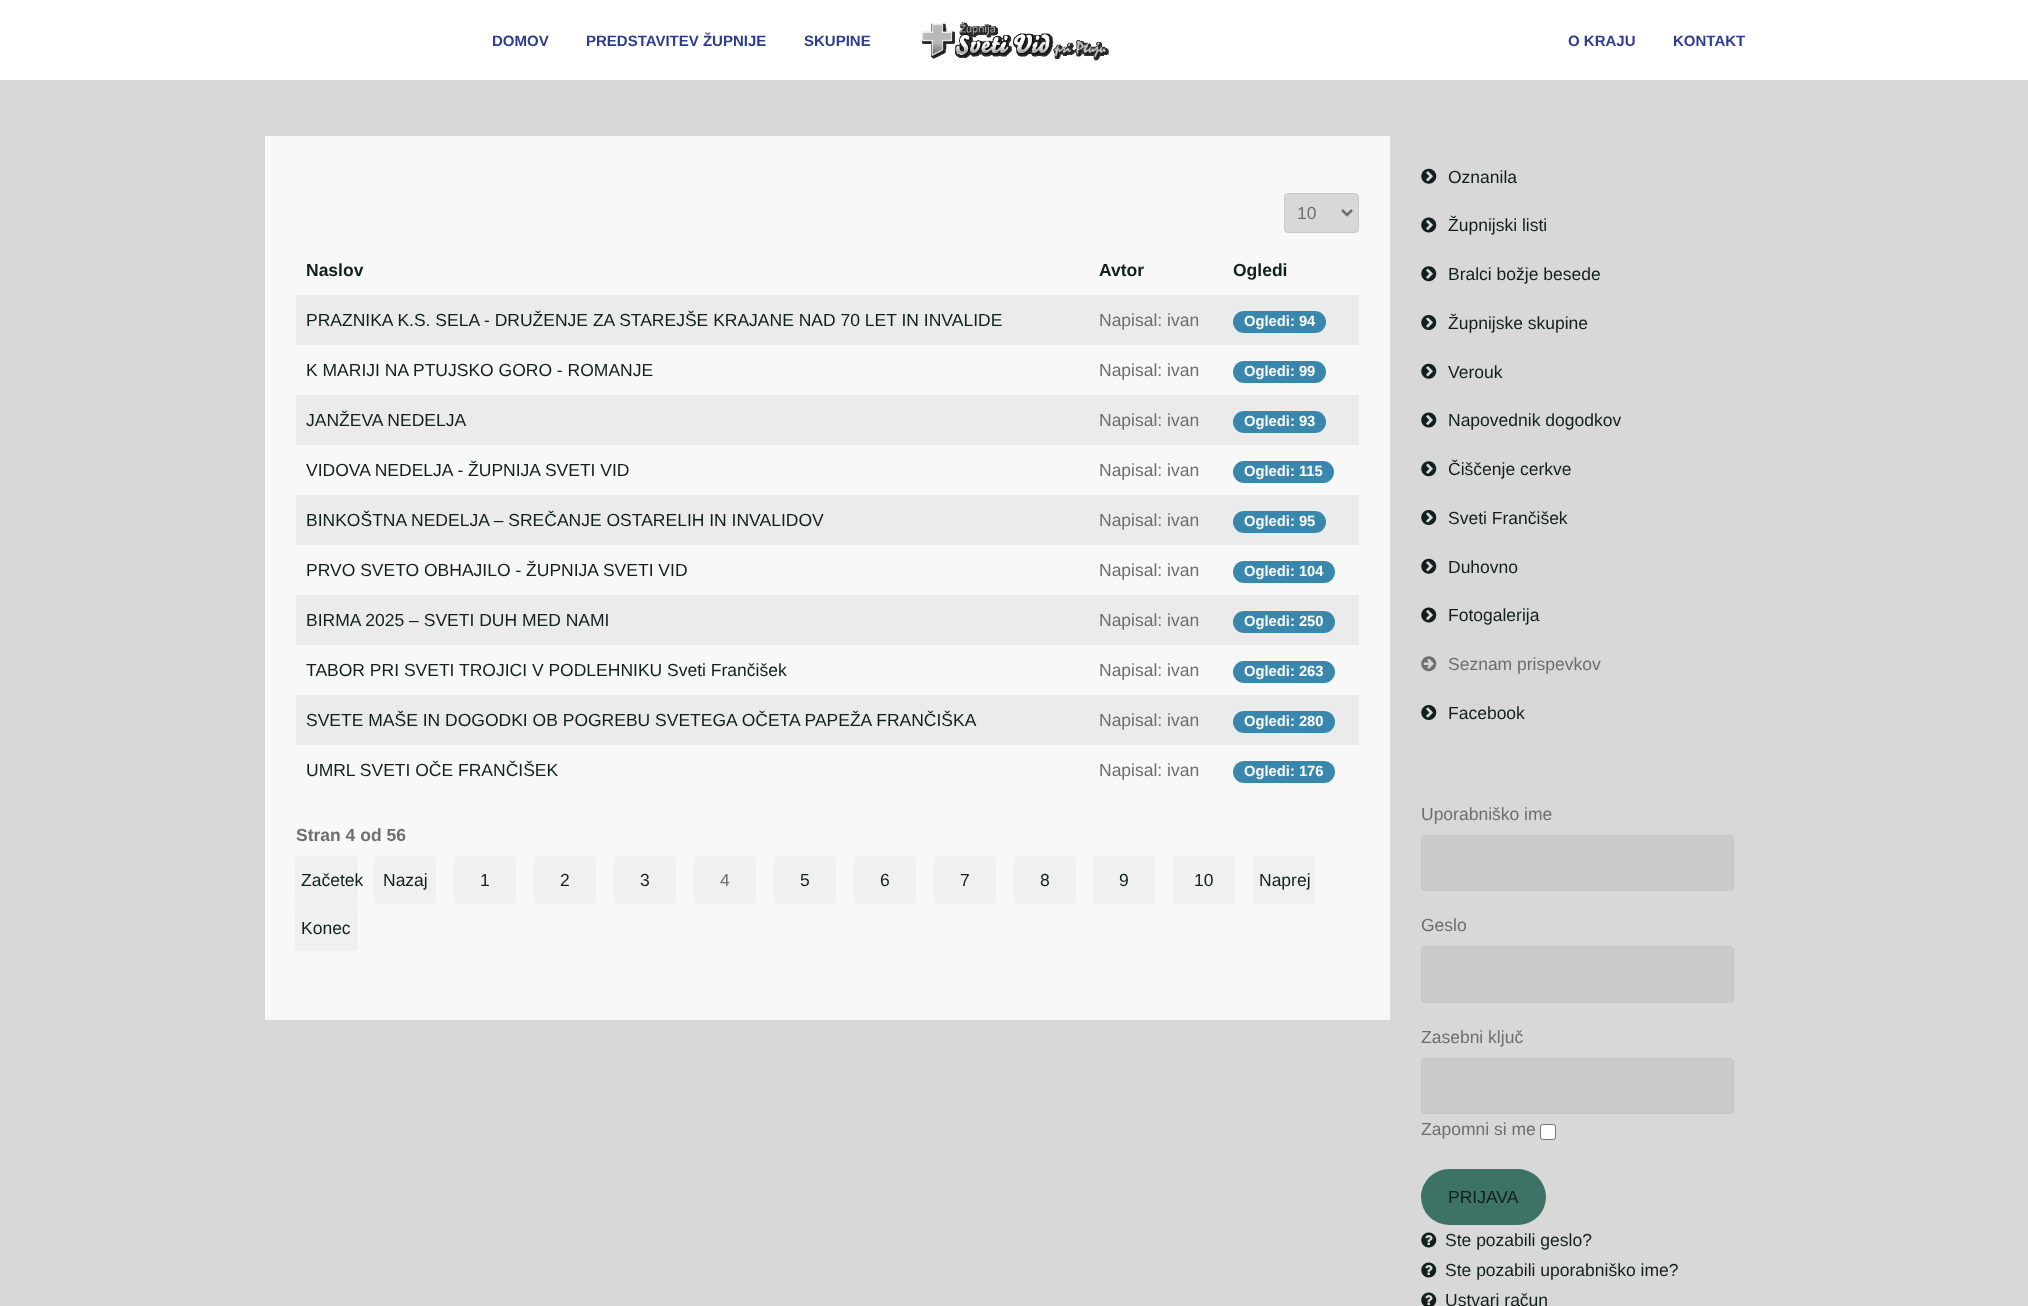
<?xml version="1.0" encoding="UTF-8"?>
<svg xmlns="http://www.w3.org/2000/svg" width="2028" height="1306">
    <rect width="100%" height="100%" fill="#D8D8D8"/>
    <rect x="0" y="0" width="2028" height="80" fill="#FFFFFF"/>
    <text x="492" y="46" font-family="Liberation Sans" font-size="15" font-weight="700" fill="#2D3C8E">DOMOV</text>
    <text x="586" y="46" font-family="Liberation Sans" font-size="15" font-weight="700" fill="#2D3C8E">PREDSTAVITEV ŽUPNIJE</text>
    <text x="804" y="46" font-family="Liberation Sans" font-size="15" font-weight="700" fill="#2D3C8E">SKUPINE</text>
    <image x="922" y="22" width="187" height="39" href="img_01.png"/>
    <text x="1568" y="46" font-family="Liberation Sans" font-size="15" font-weight="700" fill="#2D3C8E">O KRAJU</text>
    <text x="1673" y="46" font-family="Liberation Sans" font-size="15" font-weight="700" fill="#2D3C8E">KONTAKT</text>
    <rect x="265" y="136" width="1125" height="884" fill="#F8F8F8"/>
    <rect x="1284.5" y="193.5" width="74" height="39" rx="3.5" fill="#D8D8D8" stroke="#CBCBCB"/>
    <path d="M 1342 210 L 1347 215 L 1352 210" fill="none" stroke="#6E6E6E" stroke-width="2.5"/>
    <text x="1297" y="219" font-family="Liberation Sans" font-size="17.5" fill="#6E6E6E">10</text>
    <text x="306" y="276" font-family="Liberation Sans" font-size="17.5" font-weight="700" fill="#11201C">Naslov</text>
    <text x="1099" y="276" font-family="Liberation Sans" font-size="17.5" font-weight="700" fill="#11201C">Avtor</text>
    <text x="1233" y="276" font-family="Liberation Sans" font-size="17.5" font-weight="700" fill="#11201C">Ogledi</text>
    <rect x="296" y="295" width="1063" height="50" fill="#EBEBEB"/>
    <text x="306" y="326" font-family="Liberation Sans" font-size="17.5" fill="#11201C">PRAZNIKA K.S. SELA - DRUŽENJE ZA STAREJŠE KRAJANE NAD 70 LET IN INVALIDE</text>
    <text x="1099" y="326" font-family="Liberation Sans" font-size="17.5" fill="#6E6E6E">Napisal: ivan</text>
    <rect x="1233" y="311" width="93" height="22" rx="11" fill="#3A87AD"/>
    <text x="1244" y="326" font-family="Liberation Sans" font-size="14.75" font-weight="700" fill="#FFFFFF">Ogledi: 94</text>
    <text x="306" y="376" font-family="Liberation Sans" font-size="17.5" fill="#11201C">K MARIJI NA PTUJSKO GORO - ROMANJE</text>
    <text x="1099" y="376" font-family="Liberation Sans" font-size="17.5" fill="#6E6E6E">Napisal: ivan</text>
    <rect x="1233" y="361" width="93" height="22" rx="11" fill="#3A87AD"/>
    <text x="1244" y="376" font-family="Liberation Sans" font-size="14.75" font-weight="700" fill="#FFFFFF">Ogledi: 99</text>
    <rect x="296" y="395" width="1063" height="50" fill="#EBEBEB"/>
    <text x="306" y="426" font-family="Liberation Sans" font-size="17.5" fill="#11201C">JANŽEVA NEDELJA</text>
    <text x="1099" y="426" font-family="Liberation Sans" font-size="17.5" fill="#6E6E6E">Napisal: ivan</text>
    <rect x="1233" y="411" width="93" height="22" rx="11" fill="#3A87AD"/>
    <text x="1244" y="426" font-family="Liberation Sans" font-size="14.75" font-weight="700" fill="#FFFFFF">Ogledi: 93</text>
    <text x="306" y="476" font-family="Liberation Sans" font-size="17.5" fill="#11201C">VIDOVA NEDELJA - ŽUPNIJA SVETI VID</text>
    <text x="1099" y="476" font-family="Liberation Sans" font-size="17.5" fill="#6E6E6E">Napisal: ivan</text>
    <rect x="1233" y="461" width="101" height="22" rx="11" fill="#3A87AD"/>
    <text x="1244" y="476" font-family="Liberation Sans" font-size="14.75" font-weight="700" fill="#FFFFFF">Ogledi: 115</text>
    <rect x="296" y="495" width="1063" height="50" fill="#EBEBEB"/>
    <text x="306" y="526" font-family="Liberation Sans" font-size="17.5" fill="#11201C">BINKOŠTNA NEDELJA – SREČANJE OSTARELIH IN INVALIDOV</text>
    <text x="1099" y="526" font-family="Liberation Sans" font-size="17.5" fill="#6E6E6E">Napisal: ivan</text>
    <rect x="1233" y="511" width="93" height="22" rx="11" fill="#3A87AD"/>
    <text x="1244" y="526" font-family="Liberation Sans" font-size="14.75" font-weight="700" fill="#FFFFFF">Ogledi: 95</text>
    <text x="306" y="576" font-family="Liberation Sans" font-size="17.5" fill="#11201C">PRVO SVETO OBHAJILO - ŽUPNIJA SVETI VID</text>
    <text x="1099" y="576" font-family="Liberation Sans" font-size="17.5" fill="#6E6E6E">Napisal: ivan</text>
    <rect x="1233" y="561" width="102" height="22" rx="11" fill="#3A87AD"/>
    <text x="1244" y="576" font-family="Liberation Sans" font-size="14.75" font-weight="700" fill="#FFFFFF">Ogledi: 104</text>
    <rect x="296" y="595" width="1063" height="50" fill="#EBEBEB"/>
    <text x="306" y="626" font-family="Liberation Sans" font-size="17.5" fill="#11201C">BIRMA 2025 – SVETI DUH MED NAMI</text>
    <text x="1099" y="626" font-family="Liberation Sans" font-size="17.5" fill="#6E6E6E">Napisal: ivan</text>
    <rect x="1233" y="611" width="102" height="22" rx="11" fill="#3A87AD"/>
    <text x="1244" y="626" font-family="Liberation Sans" font-size="14.75" font-weight="700" fill="#FFFFFF">Ogledi: 250</text>
    <text x="306" y="676" font-family="Liberation Sans" font-size="17.5" fill="#11201C">TABOR PRI SVETI TROJICI V PODLEHNIKU Sveti Frančišek</text>
    <text x="1099" y="676" font-family="Liberation Sans" font-size="17.5" fill="#6E6E6E">Napisal: ivan</text>
    <rect x="1233" y="661" width="102" height="22" rx="11" fill="#3A87AD"/>
    <text x="1244" y="676" font-family="Liberation Sans" font-size="14.75" font-weight="700" fill="#FFFFFF">Ogledi: 263</text>
    <rect x="296" y="695" width="1063" height="50" fill="#EBEBEB"/>
    <text x="306" y="726" font-family="Liberation Sans" font-size="17.5" fill="#11201C">SVETE MAŠE IN DOGODKI OB POGREBU SVETEGA OČETA PAPEŽA FRANČIŠKA</text>
    <text x="1099" y="726" font-family="Liberation Sans" font-size="17.5" fill="#6E6E6E">Napisal: ivan</text>
    <rect x="1233" y="711" width="102" height="22" rx="11" fill="#3A87AD"/>
    <text x="1244" y="726" font-family="Liberation Sans" font-size="14.75" font-weight="700" fill="#FFFFFF">Ogledi: 280</text>
    <text x="306" y="776" font-family="Liberation Sans" font-size="17.5" fill="#11201C">UMRL SVETI OČE FRANČIŠEK</text>
    <text x="1099" y="776" font-family="Liberation Sans" font-size="17.5" fill="#6E6E6E">Napisal: ivan</text>
    <rect x="1233" y="761" width="102" height="22" rx="11" fill="#3A87AD"/>
    <text x="1244" y="776" font-family="Liberation Sans" font-size="14.75" font-weight="700" fill="#FFFFFF">Ogledi: 176</text>
    <text x="296" y="841" font-family="Liberation Sans" font-size="17.5" font-weight="700" fill="#6E6E6E">Stran 4 od 56</text>
    <rect x="295" y="856" width="63" height="48" rx="4" fill="#F0F0F0"/>
    <text x="301" y="886" font-family="Liberation Sans" font-size="17.5" fill="#11201C">Začetek</text>
    <rect x="374" y="856" width="62" height="48" rx="4" fill="#F0F0F0"/>
    <text x="383" y="886" font-family="Liberation Sans" font-size="17.5" fill="#11201C">Nazaj</text>
    <rect x="454" y="856" width="62" height="48" rx="4" fill="#F0F0F0"/>
    <text x="480" y="886" font-family="Liberation Sans" font-size="17.5" fill="#11201C">1</text>
    <rect x="534" y="856" width="62" height="48" rx="4" fill="#F0F0F0"/>
    <text x="560" y="886" font-family="Liberation Sans" font-size="17.5" fill="#11201C">2</text>
    <rect x="614" y="856" width="62" height="48" rx="4" fill="#F0F0F0"/>
    <text x="640" y="886" font-family="Liberation Sans" font-size="17.5" fill="#11201C">3</text>
    <rect x="694" y="856" width="62" height="48" rx="4" fill="#F0F0F0"/>
    <text x="720" y="886" font-family="Liberation Sans" font-size="17.5" fill="#6E6E6E">4</text>
    <rect x="774" y="856" width="62" height="48" rx="4" fill="#F0F0F0"/>
    <text x="800" y="886" font-family="Liberation Sans" font-size="17.5" fill="#11201C">5</text>
    <rect x="854" y="856" width="62" height="48" rx="4" fill="#F0F0F0"/>
    <text x="880" y="886" font-family="Liberation Sans" font-size="17.5" fill="#11201C">6</text>
    <rect x="934" y="856" width="62" height="48" rx="4" fill="#F0F0F0"/>
    <text x="960" y="886" font-family="Liberation Sans" font-size="17.5" fill="#11201C">7</text>
    <rect x="1014" y="856" width="62" height="48" rx="4" fill="#F0F0F0"/>
    <text x="1040" y="886" font-family="Liberation Sans" font-size="17.5" fill="#11201C">8</text>
    <rect x="1093" y="856" width="62" height="48" rx="4" fill="#F0F0F0"/>
    <text x="1119" y="886" font-family="Liberation Sans" font-size="17.5" fill="#11201C">9</text>
    <rect x="1173" y="856" width="62" height="48" rx="4" fill="#F0F0F0"/>
    <text x="1194" y="886" font-family="Liberation Sans" font-size="17.5" fill="#11201C">10</text>
    <rect x="1253" y="856" width="62" height="48" rx="4" fill="#F0F0F0"/>
    <text x="1259" y="886" font-family="Liberation Sans" font-size="17.5" fill="#11201C">Naprej</text>
    <rect x="295" y="904" width="63" height="47" rx="4" fill="#F0F0F0"/>
    <text x="301" y="934" font-family="Liberation Sans" font-size="17.5" fill="#11201C">Konec</text>
    <image x="1421" y="168" width="16" height="16" href="img_02.png"/>
    <text x="1448" y="183" font-family="Liberation Sans" font-size="17.5" fill="#11201C">Oznanila</text>
    <image x="1421" y="217" width="16" height="16" href="img_03.png"/>
    <text x="1448" y="231" font-family="Liberation Sans" font-size="17.5" fill="#11201C">Župnijski listi</text>
    <image x="1421" y="266" width="16" height="16" href="img_04.png"/>
    <text x="1448" y="280" font-family="Liberation Sans" font-size="17.5" fill="#11201C">Bralci božje besede</text>
    <image x="1421" y="315" width="16" height="15" href="img_05.png"/>
    <text x="1448" y="329" font-family="Liberation Sans" font-size="17.5" fill="#11201C">Župnijske skupine</text>
    <image x="1421" y="363" width="16" height="16" href="img_02.png"/>
    <text x="1448" y="378" font-family="Liberation Sans" font-size="17.5" fill="#11201C">Verouk</text>
    <image x="1421" y="412" width="16" height="16" href="img_03.png"/>
    <text x="1448" y="426" font-family="Liberation Sans" font-size="17.5" fill="#11201C">Napovednik dogodkov</text>
    <image x="1421" y="461" width="16" height="16" href="img_04.png"/>
    <text x="1448" y="475" font-family="Liberation Sans" font-size="17.5" fill="#11201C">Čiščenje cerkve</text>
    <image x="1421" y="510" width="16" height="15" href="img_05.png"/>
    <text x="1448" y="524" font-family="Liberation Sans" font-size="17.5" fill="#11201C">Sveti Frančišek</text>
    <image x="1421" y="558" width="16" height="16" href="img_02.png"/>
    <text x="1448" y="573" font-family="Liberation Sans" font-size="17.5" fill="#11201C">Duhovno</text>
    <image x="1421" y="607" width="16" height="16" href="img_03.png"/>
    <text x="1448" y="621" font-family="Liberation Sans" font-size="17.5" fill="#11201C">Fotogalerija</text>
    <image x="1421" y="656" width="16" height="16" href="img_06.png"/>
    <text x="1448" y="670" font-family="Liberation Sans" font-size="17.5" fill="#6E6E6E">Seznam prispevkov</text>
    <image x="1421" y="705" width="16" height="15" href="img_05.png"/>
    <text x="1448" y="719" font-family="Liberation Sans" font-size="17.5" fill="#11201C">Facebook</text>
    <text x="1421" y="820" font-family="Liberation Sans" font-size="17.5" fill="#6E6E6E">Uporabniško ime</text>
    <rect x="1421.5" y="835.5" width="312" height="55" rx="3.5" fill="#CBCBCB" stroke="#C4C4C4"/>
    <text x="1421" y="931" font-family="Liberation Sans" font-size="17.5" fill="#6E6E6E">Geslo</text>
    <rect x="1421.5" y="946.5" width="312" height="56" rx="3.5" fill="#CBCBCB" stroke="#C4C4C4"/>
    <text x="1421" y="1043" font-family="Liberation Sans" font-size="17.5" fill="#6E6E6E">Zasebni ključ</text>
    <rect x="1421.5" y="1058.5" width="312" height="55" rx="3.5" fill="#CBCBCB" stroke="#C4C4C4"/>
    <text x="1421" y="1135" font-family="Liberation Sans" font-size="17.5" fill="#6E6E6E">Zapomni si me</text>
    <rect x="1540.5" y="1124.5" width="15" height="15" rx="2" fill="#FFFFFF" stroke="#767676"/>
    <rect x="1421" y="1169" width="125" height="56" rx="28" fill="#3D7366"/>
    <text x="1448" y="1203" font-family="Liberation Sans" font-size="17.5" fill="#11201C">PRIJAVA</text>
    <image x="1421" y="1232" width="16" height="16" href="img_07.png"/>
    <text x="1445" y="1246" font-family="Liberation Sans" font-size="17.5" fill="#11201C">Ste pozabili geslo?</text>
    <image x="1421" y="1262" width="16" height="16" href="img_07.png"/>
    <text x="1445" y="1276" font-family="Liberation Sans" font-size="17.5" fill="#11201C">Ste pozabili uporabniško ime?</text>
    <image x="1421" y="1292" width="16" height="14" href="img_08.png"/>
    <text x="1445" y="1306" font-family="Liberation Sans" font-size="17.5" fill="#11201C">Ustvari račun</text>
</svg>
